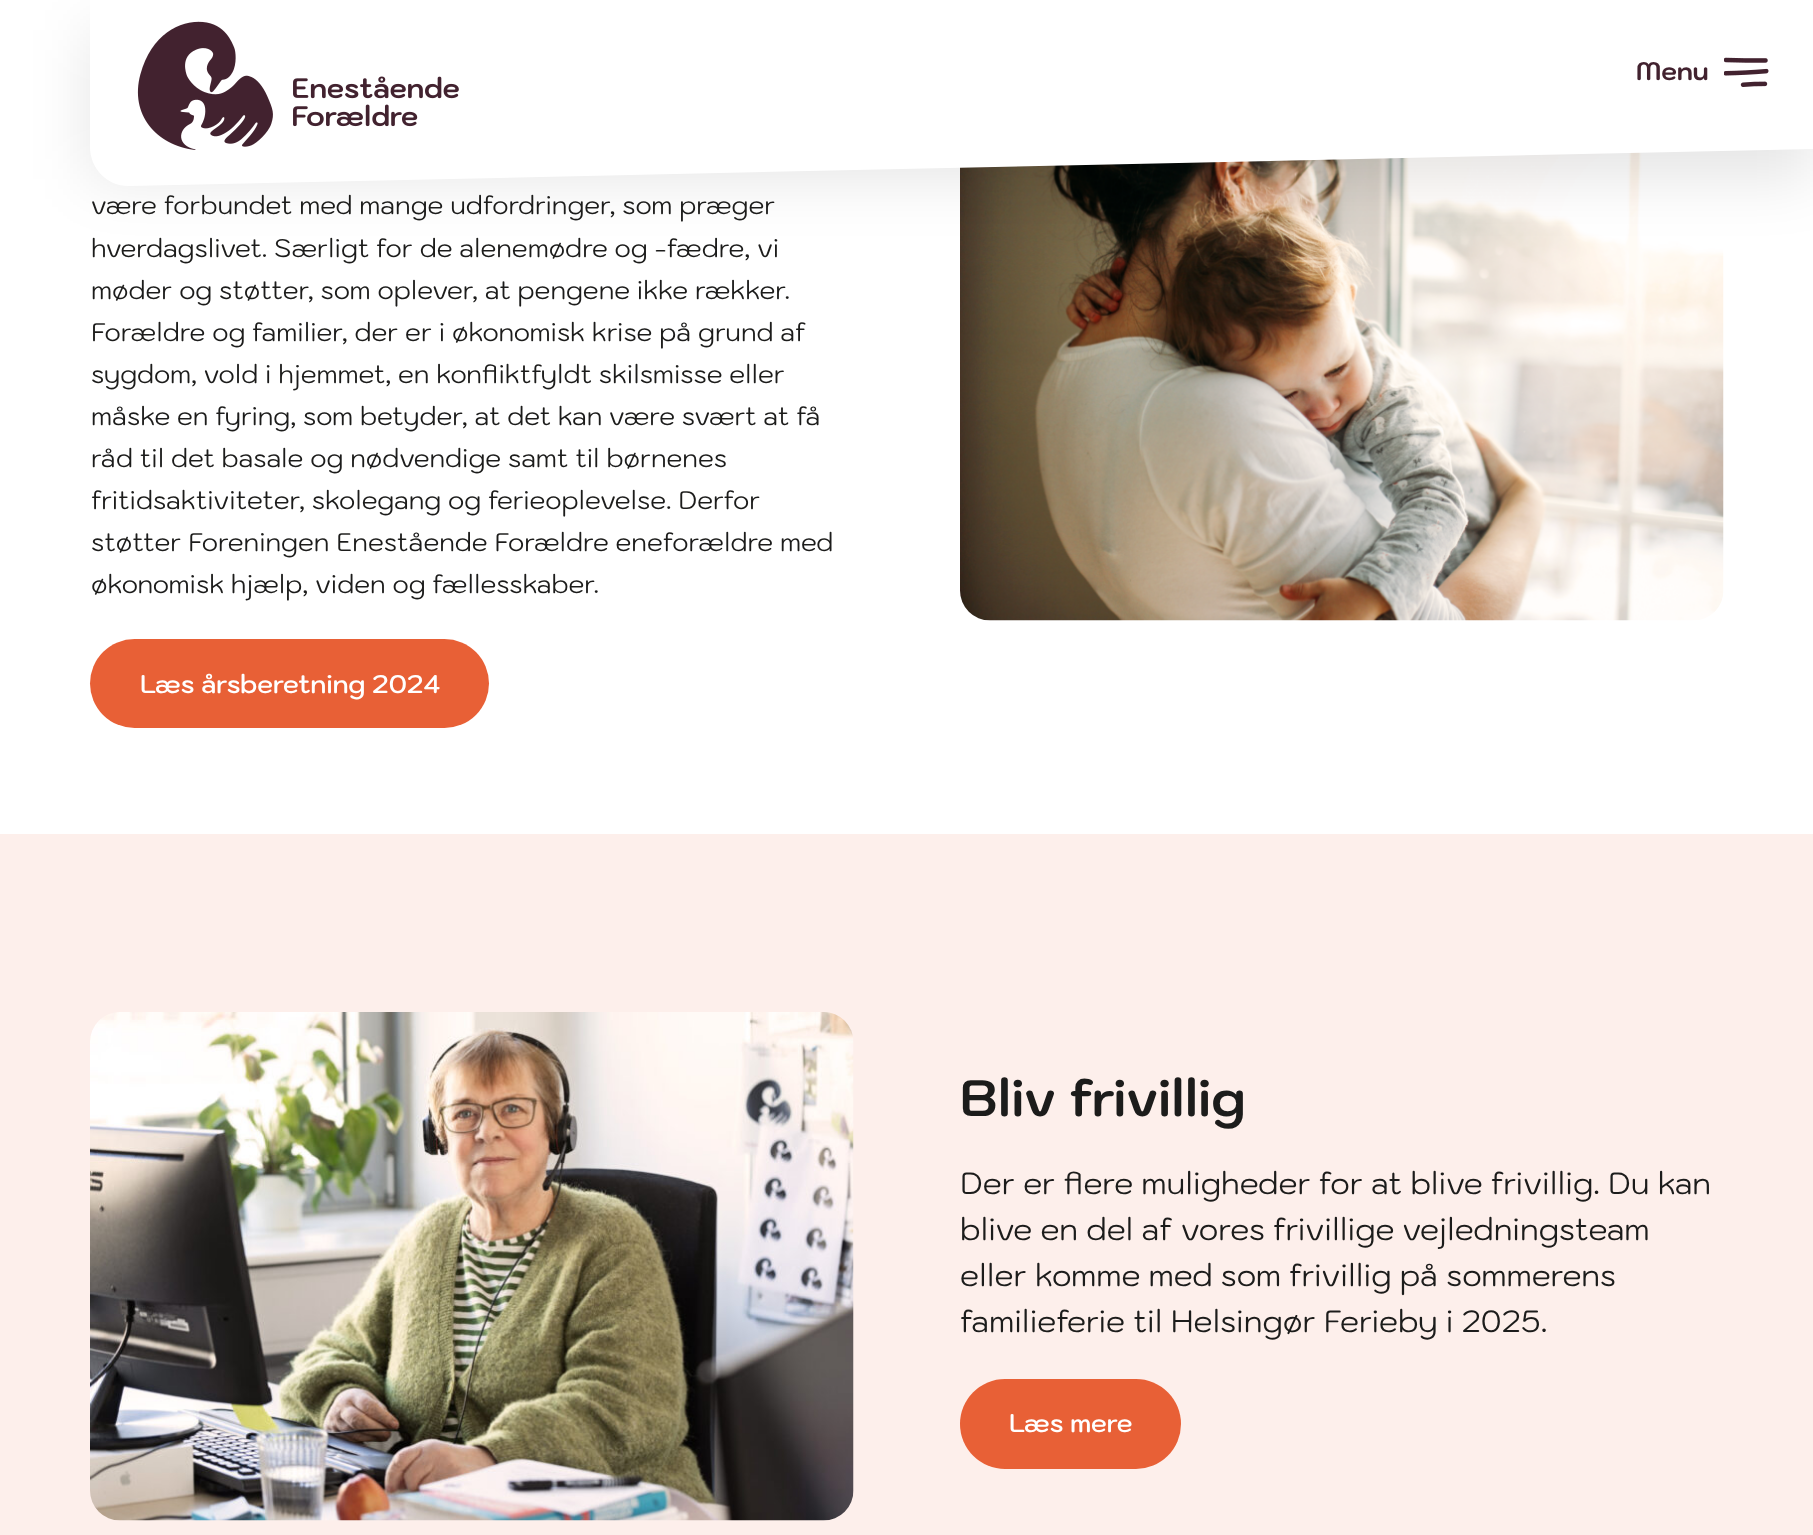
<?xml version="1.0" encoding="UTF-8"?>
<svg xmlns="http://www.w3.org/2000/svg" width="1813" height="1535">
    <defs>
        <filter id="blur1" x="-50%" y="-200%" width="200%" height="500%"><feGaussianBlur stdDeviation="30"/></filter>
    </defs>
    <rect width="100%" height="100%" fill="#FFFFFF"/>
    <image x="960" y="151" width="764" height="470" href="img_03.png"/>
    <rect x="90" y="30" width="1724" height="149" fill="#000000" fill-opacity="0.1" filter="url(#blur1)"/>
    <rect x="90" y="0" width="1723" height="149" fill="#FFFFFF"/>
    <path d="M 1813 149 L 130 186 C 108 187 90 169 90 147 H 1813 Z" fill="#FFFFFF"/>
    <image x="137" y="21" width="322" height="129" href="img_01.png"/>
    <text x="1636" y="80" font-family="Kodchasan" font-size="25.5" font-weight="700" fill="#42222F">Menu</text>
    <image x="1724" y="57" width="45" height="30" href="img_02.png"/>
    <text font-family="Kodchasan" font-size="25.5" fill="#1C1C1B">
        <tspan x="91" y="214">være forbundet med mange udfordringer, som præger</tspan>
        <tspan x="91" y="257">hverdagslivet. Særligt for de alenemødre og -fædre, vi</tspan>
        <tspan x="91" y="299">møder og støtter, som oplever, at pengene ikke rækker.</tspan>
        <tspan x="91" y="341">Forældre og familier, der er i økonomisk krise på grund af</tspan>
        <tspan x="91" y="383">sygdom, vold i hjemmet, en konfliktfyldt skilsmisse eller</tspan>
        <tspan x="91" y="425">måske en fyring, som betyder, at det kan være svært at få</tspan>
        <tspan x="91" y="467">råd til det basale og nødvendige samt til børnenes</tspan>
        <tspan x="91" y="509">fritidsaktiviteter, skolegang og ferieoplevelse. Derfor</tspan>
        <tspan x="91" y="551">støtter Foreningen Enestående Forældre eneforældre med</tspan>
        <tspan x="91" y="593">økonomisk hjælp, viden og fællesskaber.</tspan>
    </text>
    <rect x="90" y="639" width="399" height="89" rx="44.5" fill="#E86036"/>
    <text x="140" y="693" font-family="Kodchasan" font-size="25.5" font-weight="600" fill="#FFFFFF">Læs årsberetning 2024</text>
    <rect x="0" y="834" width="1813" height="701" fill="#FDEFEB"/>
    <image x="90" y="1012" width="764" height="509" href="img_04.png"/>
    <text x="960" y="1116" font-family="Kodchasan" font-size="51" font-weight="700" fill="#1C1C1B">Bliv frivillig</text>
    <text font-family="Kodchasan" font-size="30.6" fill="#1C1C1B">
        <tspan x="960" y="1194">Der er flere muligheder for at blive frivillig. Du kan</tspan>
        <tspan x="960" y="1240">blive en del af vores frivillige vejledningsteam</tspan>
        <tspan x="960" y="1286">eller komme med som frivillig på sommerens</tspan>
        <tspan x="960" y="1332">familieferie til Helsingør Ferieby i 2025.</tspan>
    </text>
    <rect x="960" y="1379" width="221" height="90" rx="45" fill="#E86036"/>
    <text x="1009" y="1432" font-family="Kodchasan" font-size="25.5" font-weight="600" fill="#FFFFFF">Læs mere</text>
</svg>
